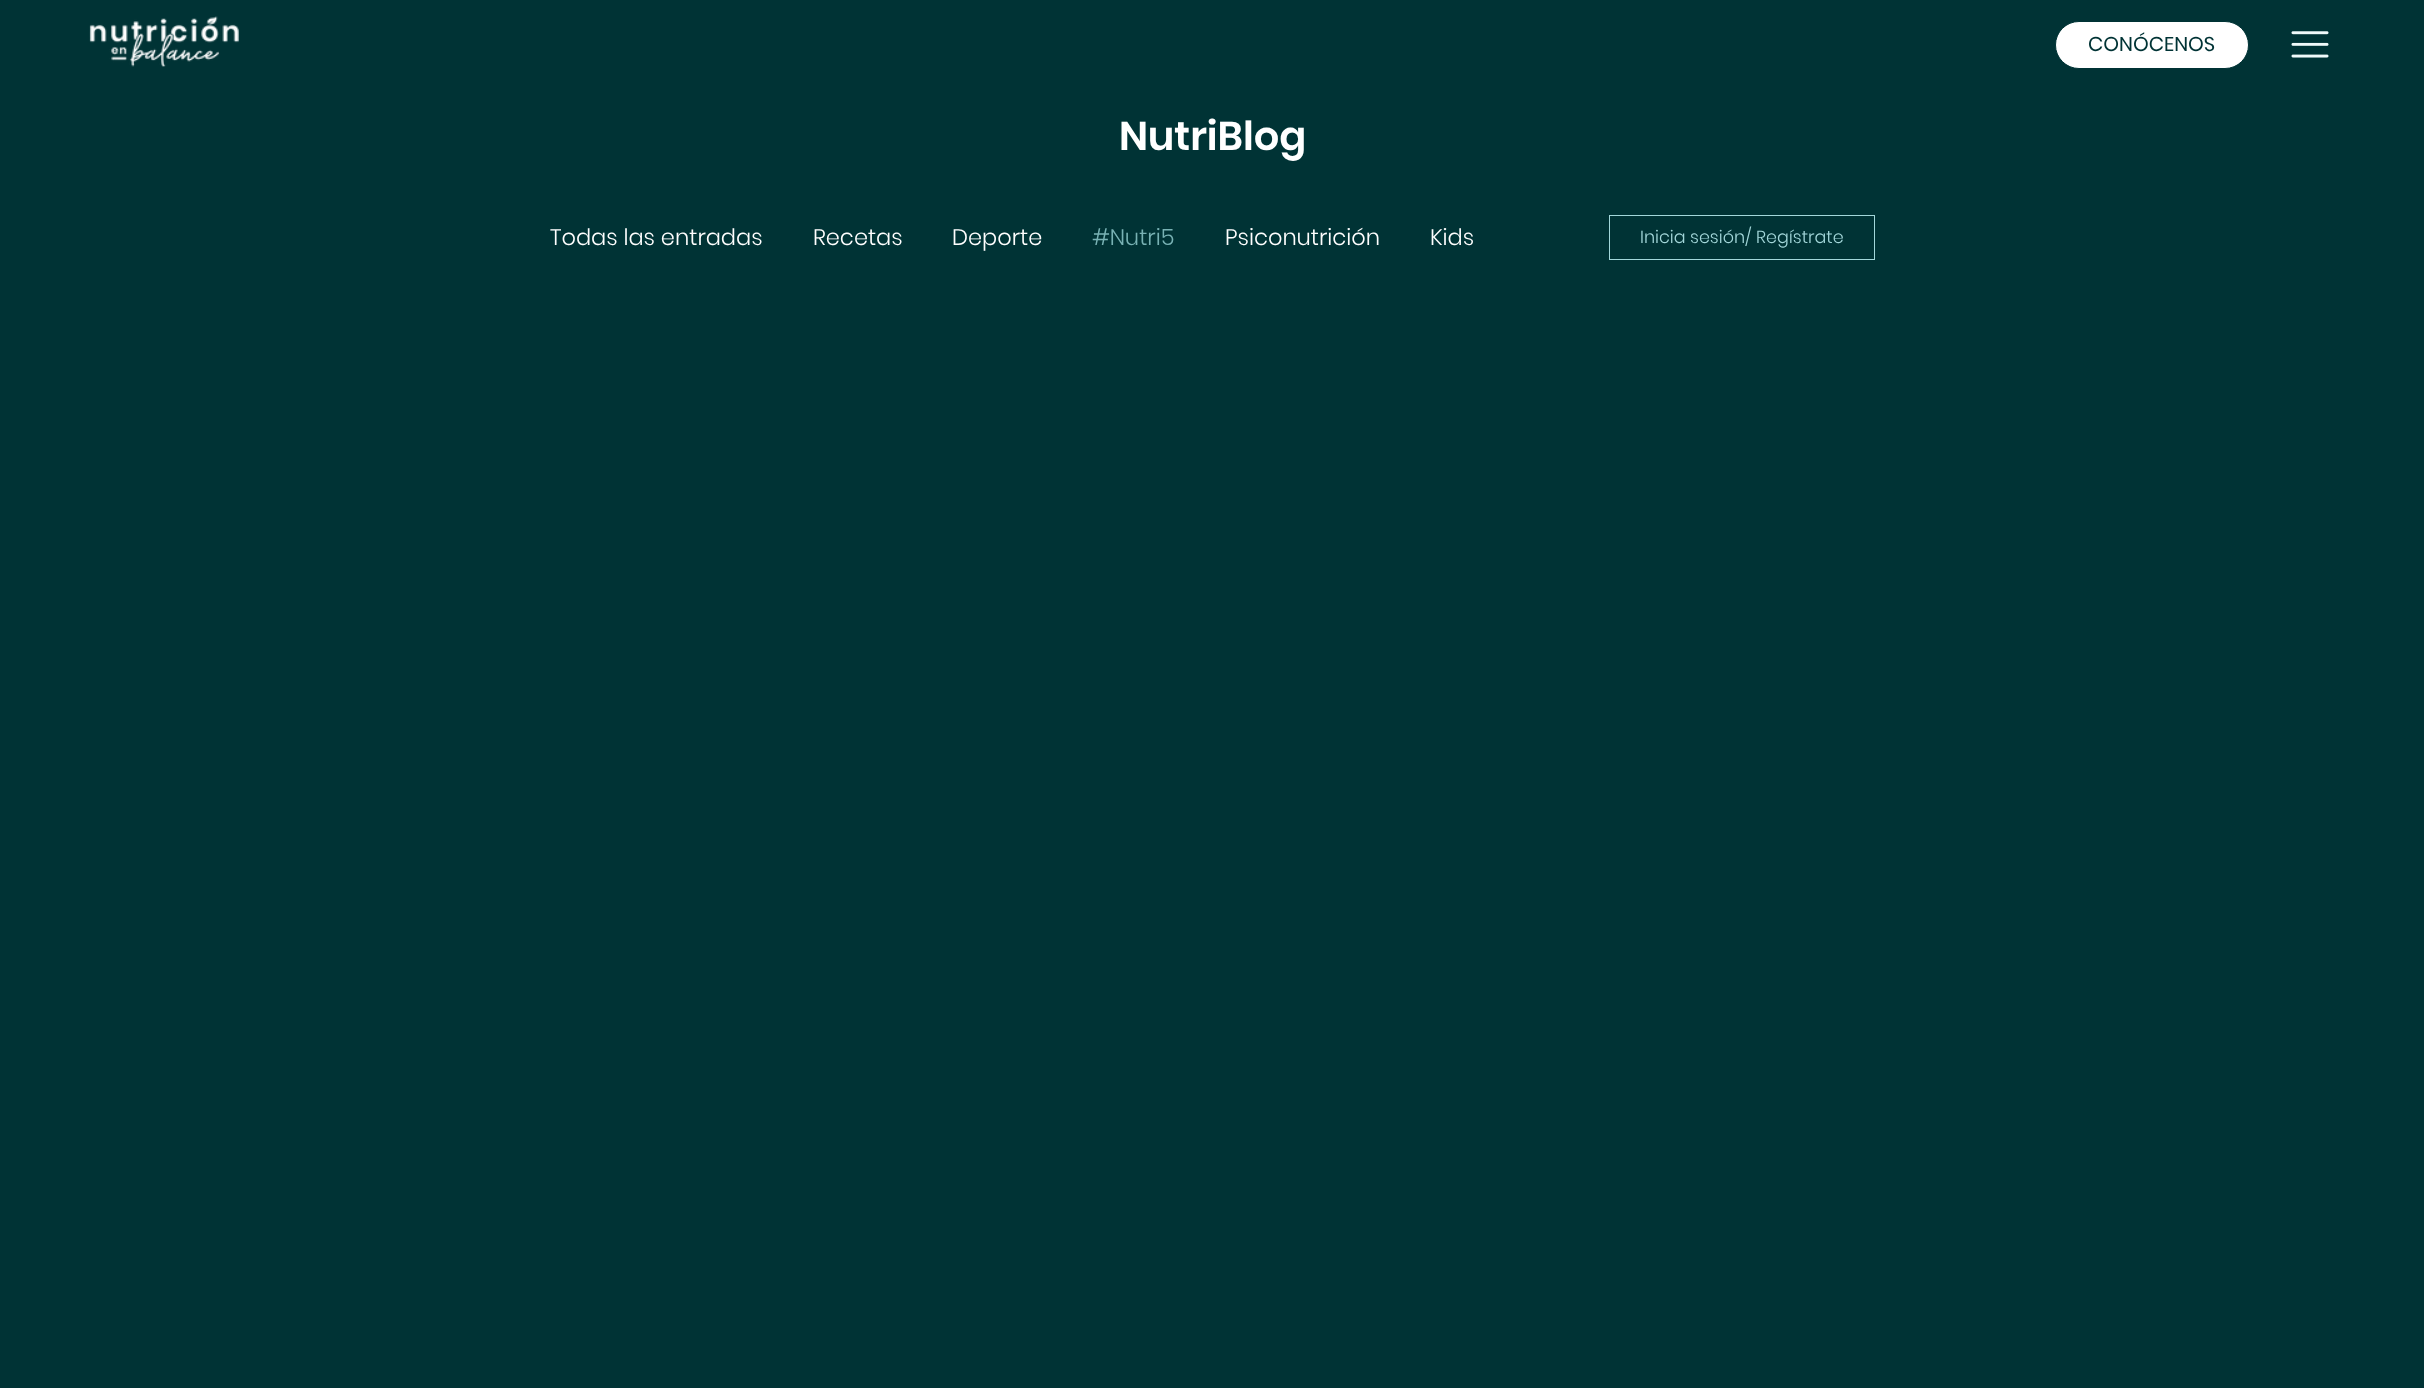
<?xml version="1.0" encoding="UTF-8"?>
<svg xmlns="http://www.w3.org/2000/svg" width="2424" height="1388">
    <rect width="100%" height="100%" fill="#003335"/>
    <image x="89" y="16" width="150" height="51" href="img_01.png"/>
    <rect x="2055.5" y="21.5" width="193" height="47" rx="23.5" fill="#FFFFFF" stroke="#003335"/>
    <text x="2088" y="51" font-family="Poppins" font-size="20" fill="#003335">CONÓCENOS</text>
    <image x="2291" y="31" width="38" height="27" href="img_02.png"/>
    <text x="1119" y="150" font-family="Poppins" font-size="40" font-weight="600" fill="#FFFFFF">NutriBlog</text>
    <text x="550" y="245" font-family="Poppins" font-size="22.5" font-weight="300" fill="#FFFFFF">Todas las entradas</text>
    <text x="813" y="245" font-family="Poppins" font-size="22.5" font-weight="300" fill="#FFFFFF">Recetas</text>
    <text x="952" y="245" font-family="Poppins" font-size="22.5" font-weight="300" fill="#FFFFFF">Deporte</text>
    <text x="1092" y="245" font-family="Poppins" font-size="22.5" font-weight="300" fill="#78B2B4">#Nutri5</text>
    <text x="1225" y="245" font-family="Poppins" font-size="22.5" font-weight="300" fill="#FFFFFF">Psiconutrición</text>
    <text x="1430" y="245" font-family="Poppins" font-size="22.5" font-weight="300" fill="#FFFFFF">Kids</text>
    <rect x="1609.5" y="215.5" width="265" height="44" fill="none" stroke="#A3D7DA"/>
    <text x="1640" y="243" font-family="Poppins" font-size="17.5" font-weight="300" fill="#A3D7DA">Inicia sesión/ Regístrate</text>
</svg>
